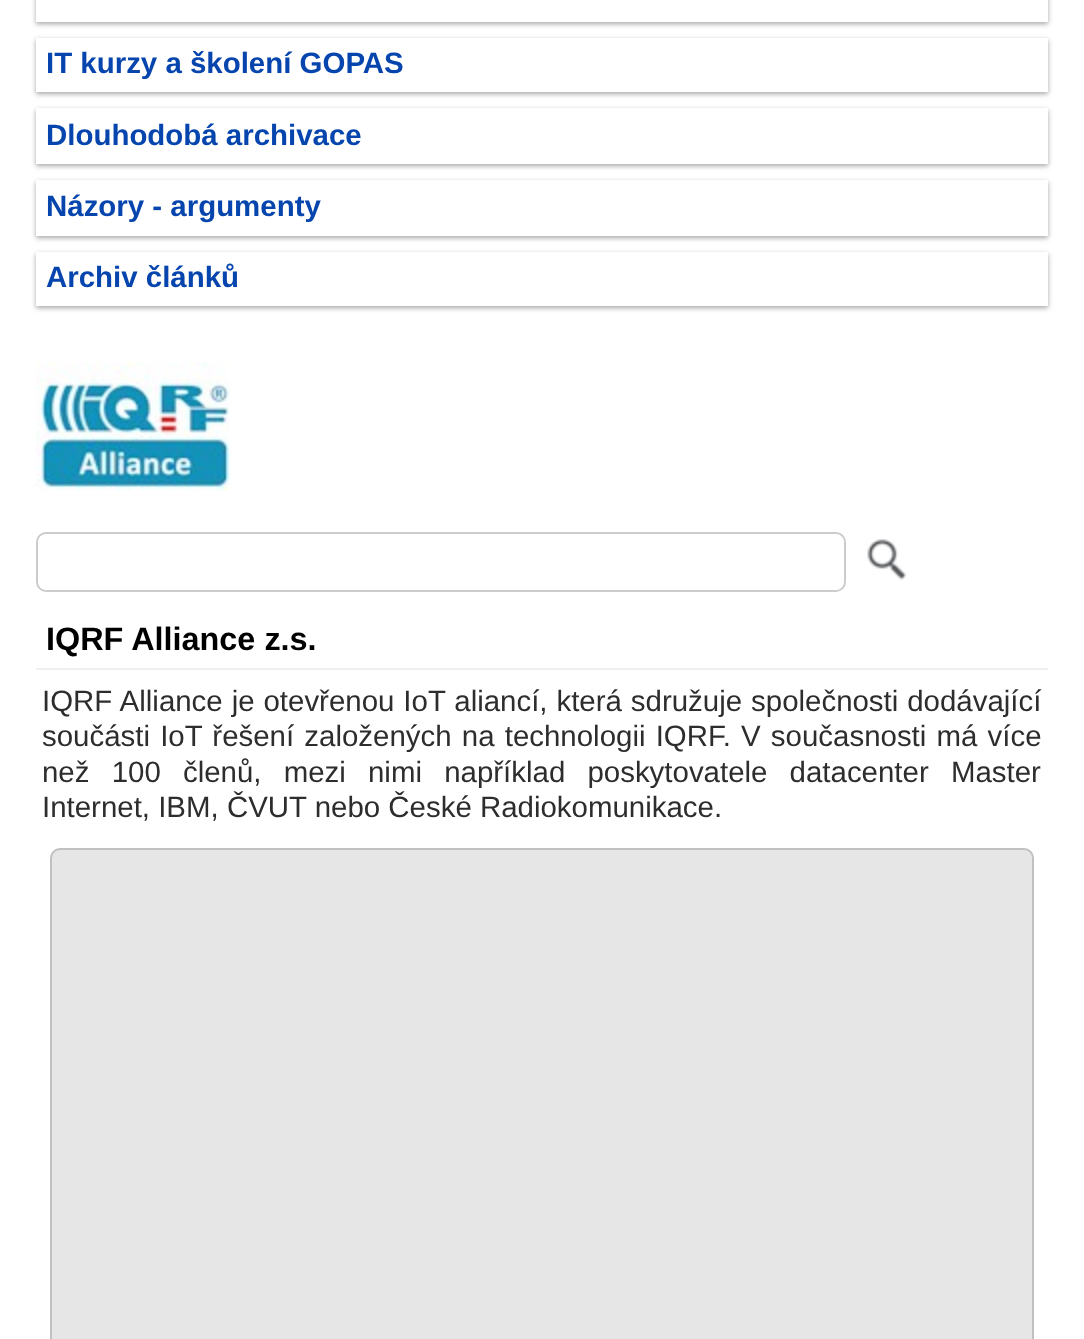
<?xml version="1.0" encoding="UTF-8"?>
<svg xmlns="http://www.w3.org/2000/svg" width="1084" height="1339">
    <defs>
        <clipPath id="clip1"><path d="M 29 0 H 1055 V 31 H 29 Z M 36 -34 H 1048 V 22 H 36 Z" clip-rule="evenodd"/></clipPath>
        <filter id="blur1" x="-50%" y="-200%" width="200%" height="500%"><feGaussianBlur stdDeviation="2"/></filter>
        <clipPath id="clip2"><path d="M 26 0 H 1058 V 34 H 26 Z M 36 -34 H 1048 V 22 H 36 Z" clip-rule="evenodd"/></clipPath>
        <filter id="blur2" x="-50%" y="-200%" width="200%" height="500%"><feGaussianBlur stdDeviation="3"/></filter>
        <clipPath id="clip3"><path d="M 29 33 H 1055 V 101 H 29 Z M 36 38 H 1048 V 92 H 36 Z" clip-rule="evenodd"/></clipPath>
        <clipPath id="clip4"><path d="M 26 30 H 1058 V 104 H 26 Z M 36 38 H 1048 V 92 H 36 Z" clip-rule="evenodd"/></clipPath>
        <clipPath id="clip5"><path d="M 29 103 H 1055 V 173 H 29 Z M 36 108 H 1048 V 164 H 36 Z" clip-rule="evenodd"/></clipPath>
        <clipPath id="clip6"><path d="M 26 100 H 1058 V 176 H 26 Z M 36 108 H 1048 V 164 H 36 Z" clip-rule="evenodd"/></clipPath>
        <clipPath id="clip7"><path d="M 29 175 H 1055 V 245 H 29 Z M 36 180 H 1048 V 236 H 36 Z" clip-rule="evenodd"/></clipPath>
        <clipPath id="clip8"><path d="M 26 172 H 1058 V 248 H 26 Z M 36 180 H 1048 V 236 H 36 Z" clip-rule="evenodd"/></clipPath>
        <clipPath id="clip9"><path d="M 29 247 H 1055 V 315 H 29 Z M 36 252 H 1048 V 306 H 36 Z" clip-rule="evenodd"/></clipPath>
        <clipPath id="clip10"><path d="M 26 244 H 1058 V 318 H 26 Z M 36 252 H 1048 V 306 H 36 Z" clip-rule="evenodd"/></clipPath>
    </defs>
    <rect width="100%" height="100%" fill="#FFFFFF"/>
    <g clip-path="url(#clip1)">
        <rect x="36" y="-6" width="1012" height="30" fill="#000000" fill-opacity="0.24" filter="url(#blur1)"/>
    </g>
    <g clip-path="url(#clip2)">
        <rect x="36" y="-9" width="1012" height="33" fill="#000000" fill-opacity="0.12" filter="url(#blur2)"/>
    </g>
    <g clip-path="url(#clip3)">
        <rect x="36" y="40" width="1012" height="54" fill="#000000" fill-opacity="0.24" filter="url(#blur1)"/>
    </g>
    <g clip-path="url(#clip4)">
        <rect x="36" y="40" width="1012" height="54" fill="#000000" fill-opacity="0.12" filter="url(#blur2)"/>
    </g>
    <text x="46" y="73" font-family="Liberation Sans" font-size="29.45" font-weight="700" fill="#0645AD">IT kurzy a školení GOPAS</text>
    <g clip-path="url(#clip5)">
        <rect x="36" y="110" width="1012" height="56" fill="#000000" fill-opacity="0.24" filter="url(#blur1)"/>
    </g>
    <g clip-path="url(#clip6)">
        <rect x="36" y="110" width="1012" height="56" fill="#000000" fill-opacity="0.12" filter="url(#blur2)"/>
    </g>
    <text x="46" y="145" font-family="Liberation Sans" font-size="29.45" font-weight="700" fill="#0645AD">Dlouhodobá archivace</text>
    <g clip-path="url(#clip7)">
        <rect x="36" y="182" width="1012" height="56" fill="#000000" fill-opacity="0.24" filter="url(#blur1)"/>
    </g>
    <g clip-path="url(#clip8)">
        <rect x="36" y="182" width="1012" height="56" fill="#000000" fill-opacity="0.12" filter="url(#blur2)"/>
    </g>
    <text x="46" y="216" font-family="Liberation Sans" font-size="29.45" font-weight="700" fill="#0645AD">Názory - argumenty</text>
    <g clip-path="url(#clip9)">
        <rect x="36" y="254" width="1012" height="54" fill="#000000" fill-opacity="0.24" filter="url(#blur1)"/>
    </g>
    <g clip-path="url(#clip10)">
        <rect x="36" y="254" width="1012" height="54" fill="#000000" fill-opacity="0.12" filter="url(#blur2)"/>
    </g>
    <text x="46" y="287" font-family="Liberation Sans" font-size="29.45" font-weight="700" fill="#0645AD">Archiv článků</text>
    <image x="36" y="362" width="195" height="129" href="img_01.png"/>
    <rect x="37" y="533" width="808" height="58" rx="9" fill="none" stroke="#CCCCCC" stroke-width="2"/>
    <image x="867" y="538" width="40" height="43" href="img_02.png"/>
    <rect x="36" y="668" width="1012" height="2" fill="#EFF0F1"/>
    <text x="46" y="650" font-family="Liberation Sans" font-size="32.4" font-weight="700" fill="#000000">IQRF Alliance z.s.</text>
    <text font-family="Liberation Sans" font-size="29.45" fill="#2D2D2D">
        <tspan x="42" y="711" word-spacing="0.75">IQRF Alliance je otevřenou IoT aliancí, která sdružuje společnosti dodávající</tspan>
        <tspan x="42" y="746" word-spacing="2">součásti IoT řešení založených na technologii IQRF. V současnosti má více</tspan>
        <tspan x="42" y="782" word-spacing="14">než 100 členů, mezi nimi například poskytovatele datacenter Master</tspan>
        <tspan x="42" y="817">Internet, IBM, ČVUT nebo České Radiokomunikace.</tspan>
    </text>
    <rect x="51" y="849" width="982" height="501" rx="9" fill="#E6E6E6" stroke="#C0C0C0" stroke-width="2"/>
</svg>
